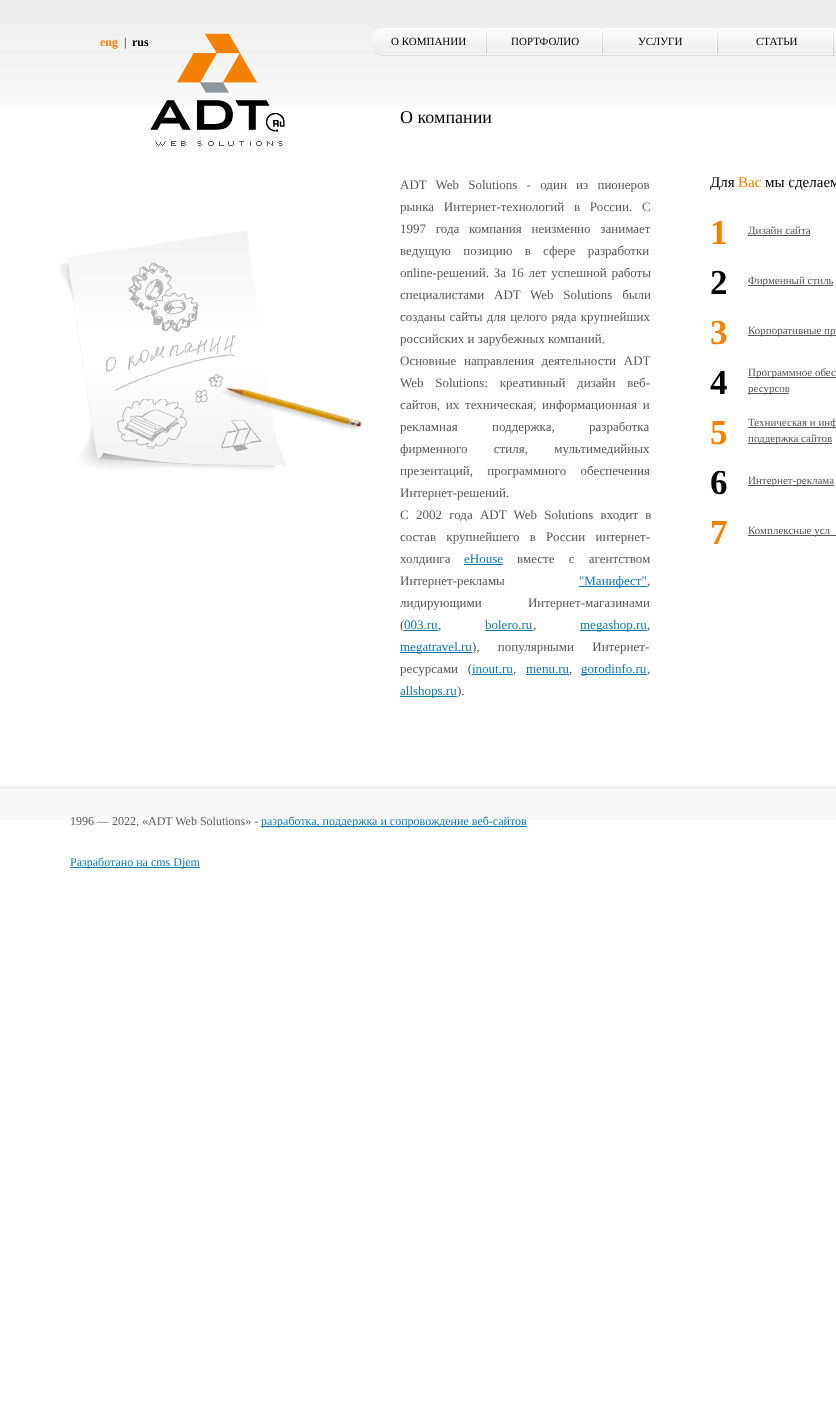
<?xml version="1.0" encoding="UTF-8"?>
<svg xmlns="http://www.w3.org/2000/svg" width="836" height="1410">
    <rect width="100%" height="100%" fill="#FFFFFF"/>
    <image x="0" y="0" width="836" height="108" href="img_01.png"/>
    <text x="100" y="46" font-family="Liberation Serif" font-size="12" font-weight="700" fill="#F58000">eng</text>
    <text x="124" y="46" font-family="Liberation Serif" font-size="12" fill="#000000">|</text>
    <text x="132" y="46" font-family="Liberation Serif" font-size="12" font-weight="700" fill="#000000">rus</text>
    <image x="150" y="33" width="135" height="113" href="img_02.png"/>
    <image x="58" y="230" width="305" height="240" href="img_03.png"/>
    <text x="400" y="123" font-family="Liberation Serif" font-size="18" fill="#000000">О компании</text>
    <text font-family="Liberation Serif" font-size="13" fill="#595959">
        <tspan x="400" y="189" word-spacing="6">ADT Web Solutions - один из пионеров</tspan>
        <tspan x="400" y="211" word-spacing="6.5">рынка Интернет-технологий в России. С</tspan>
        <tspan x="400" y="233" word-spacing="6.5">1997 года компания неизменно занимает</tspan>
        <tspan x="400" y="255" word-spacing="9">ведущую позицию в сфере разработки</tspan>
        <tspan x="400" y="277" word-spacing="1.5">online-решений. За 16 лет успешной работы</tspan>
        <tspan x="400" y="299" word-spacing="6.5">специалистами ADT Web Solutions были</tspan>
        <tspan x="400" y="321" word-spacing="1">созданы сайты для целого ряда крупнейших</tspan>
        <tspan x="400" y="343">российских и зарубежных компаний.</tspan>
        <tspan x="400" y="365" word-spacing="4.5">Основные направления деятельности ADT</tspan>
        <tspan x="400" y="387" word-spacing="8.5">Web Solutions: креативный дизайн веб-</tspan>
        <tspan x="400" y="409" word-spacing="2.5">сайтов, их техническая, информационная и</tspan>
        <tspan x="400" y="431" word-spacing="31">рекламная поддержка, разработка</tspan>
        <tspan x="400" y="453" word-spacing="23">фирменного стиля, мультимедийных</tspan>
        <tspan x="400" y="475" word-spacing="11">презентаций, программного обеспечения</tspan>
        <tspan x="400" y="497">Интернет-решений.</tspan>
        <tspan x="400" y="519" word-spacing="4">С 2002 года ADT Web Solutions входит в</tspan>
        <tspan x="400" y="541" word-spacing="7">состав крупнейшего в России интернет-</tspan>
        <tspan x="400" y="563">холдинга</tspan>
    </text>
    <text x="464" y="563" font-family="Liberation Serif" font-size="13" fill="#0F7AB2">eHouse</text>
    <rect x="464" y="564" width="39" height="1" fill="#0F7AB2"/>
    <text x="517" y="563" word-spacing="11" font-family="Liberation Serif" font-size="13" fill="#595959">вместе с агентством</text>
    <text x="400" y="585" font-family="Liberation Serif" font-size="13" fill="#595959">Интернет-рекламы</text>
    <rect x="579" y="586" width="68" height="1" fill="#0F7AB2"/>
    <text x="579" y="585" font-family="Liberation Serif" font-size="13" fill="#0F7AB2">"Манифест"</text>
    <text x="647" y="585" font-family="Liberation Serif" font-size="13" fill="#595959">,</text>
    <text font-family="Liberation Serif" font-size="13" fill="#595959">
        <tspan x="400" y="607" word-spacing="43">лидирующими Интернет-магазинами</tspan>
        <tspan x="400" y="629">(</tspan>
    </text>
    <text x="404" y="629" font-family="Liberation Serif" font-size="13" fill="#0F7AB2">003.ru</text>
    <rect x="404" y="630" width="34" height="1" fill="#0F7AB2"/>
    <text x="438" y="629" font-family="Liberation Serif" font-size="13" fill="#595959">,</text>
    <text x="485" y="629" font-family="Liberation Serif" font-size="13" fill="#0F7AB2">bolero.ru</text>
    <rect x="485" y="630" width="48" height="1" fill="#0F7AB2"/>
    <text x="533" y="629" font-family="Liberation Serif" font-size="13" fill="#595959">,</text>
    <rect x="580" y="630" width="67" height="1" fill="#0F7AB2"/>
    <text x="580" y="629" font-family="Liberation Serif" font-size="13" fill="#0F7AB2">megashop.ru</text>
    <text x="647" y="629" font-family="Liberation Serif" font-size="13" fill="#595959">,</text>
    <rect x="400" y="652" width="72" height="1" fill="#0F7AB2"/>
    <text x="400" y="651" font-family="Liberation Serif" font-size="13" fill="#0F7AB2">megatravel.ru</text>
    <text x="472" y="651" word-spacing="15" font-family="Liberation Serif" font-size="13" fill="#595959">), популярными Интернет-</text>
    <text x="400" y="673" word-spacing="6.5" font-family="Liberation Serif" font-size="13" fill="#595959">ресурсами (</text>
    <text x="472" y="673" font-family="Liberation Serif" font-size="13" fill="#0F7AB2">inout.ru</text>
    <rect x="472" y="674" width="41" height="1" fill="#0F7AB2"/>
    <text x="513" y="673" font-family="Liberation Serif" font-size="13" fill="#595959">,</text>
    <text x="526" y="673" font-family="Liberation Serif" font-size="13" fill="#0F7AB2">menu.ru</text>
    <rect x="526" y="674" width="43" height="1" fill="#0F7AB2"/>
    <text x="569" y="673" font-family="Liberation Serif" font-size="13" fill="#595959">,</text>
    <rect x="581" y="674" width="66" height="1" fill="#0F7AB2"/>
    <text x="581" y="673" font-family="Liberation Serif" font-size="13" fill="#0F7AB2">gorodinfo.ru</text>
    <text x="647" y="673" font-family="Liberation Serif" font-size="13" fill="#595959">,</text>
    <rect x="400" y="696" width="57" height="1" fill="#0F7AB2"/>
    <text x="400" y="695" font-family="Liberation Serif" font-size="13" fill="#0F7AB2">allshops.ru</text>
    <text x="457" y="695" font-family="Liberation Serif" font-size="13" fill="#595959">).</text>
    <text x="710" y="187" font-family="Liberation Serif" font-size="15" fill="#000000">Для</text>
    <text x="738" y="187" font-family="Liberation Serif" font-size="15" fill="#F58000">Вас</text>
    <text x="765" y="187" font-family="Liberation Serif" font-size="15" fill="#000000">мы сделаем</text>
    <text x="710" y="244" font-family="Liberation Serif" font-size="35" font-weight="700" fill="#F58000">1</text>
    <rect x="748" y="235" width="62" height="1" fill="#595959"/>
    <text x="748" y="234" font-family="Liberation Serif" font-size="11" fill="#595959">Дизайн сайта</text>
    <text x="710" y="294" font-family="Liberation Serif" font-size="35" font-weight="700" fill="#000000">2</text>
    <rect x="748" y="285" width="85" height="1" fill="#595959"/>
    <text x="748" y="284" font-family="Liberation Serif" font-size="11" fill="#595959">Фирменный стиль</text>
    <text x="710" y="344" font-family="Liberation Serif" font-size="35" font-weight="700" fill="#F58000">3</text>
    <rect x="748" y="335" width="88" height="1" fill="#595959"/>
    <text x="748" y="334" font-family="Liberation Serif" font-size="11" fill="#595959">Корпоративные пре</text>
    <text x="710" y="394" font-family="Liberation Serif" font-size="35" font-weight="700" fill="#000000">4</text>
    <rect x="748" y="377" width="88" height="1" fill="#595959"/>
    <text x="748" y="376" font-family="Liberation Serif" font-size="11" fill="#595959">Программное обес</text>
    <rect x="748" y="393" width="41" height="1" fill="#595959"/>
    <text x="748" y="392" font-family="Liberation Serif" font-size="11" fill="#595959">ресурсов</text>
    <text x="710" y="444" font-family="Liberation Serif" font-size="35" font-weight="700" fill="#F58000">5</text>
    <rect x="748" y="427" width="88" height="1" fill="#595959"/>
    <text x="748" y="426" font-family="Liberation Serif" font-size="11" fill="#595959">Техническая и инф</text>
    <rect x="748" y="443" width="84" height="1" fill="#595959"/>
    <text x="748" y="442" font-family="Liberation Serif" font-size="11" fill="#595959">поддержка сайтов</text>
    <text x="710" y="494" font-family="Liberation Serif" font-size="35" font-weight="700" fill="#000000">6</text>
    <rect x="748" y="485" width="86" height="1" fill="#595959"/>
    <text x="748" y="484" font-family="Liberation Serif" font-size="11" fill="#595959">Интернет-реклама</text>
    <text x="710" y="544" font-family="Liberation Serif" font-size="35" font-weight="700" fill="#F58000">7</text>
    <rect x="748" y="535" width="88" height="1" fill="#595959"/>
    <text x="748" y="534" font-family="Liberation Serif" font-size="11" fill="#595959">Комплексные усл</text>
    <image x="370" y="28" width="466" height="26" href="img_04.png"/>
    <path d="M 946.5 31.5 C 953.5 38.5 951 51 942 54.5 L 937 55.5 H 384 C 380.5 55.5 377 54 374.5 51.5" fill="none" stroke="#D8D8D8"/>
    <path d="M 374.5 51.5 C 367.5 44.5 370 32 379 28.5 L 384 27.5 H 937 C 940.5 27.5 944 29 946.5 31.5" fill="none" stroke="#F3F2F2"/>
    <image x="485" y="28" width="2" height="26" href="img_05.png"/>
    <text x="391" y="45" font-family="Liberation Serif" font-size="11" fill="#000000">О КОМПАНИИ</text>
    <image x="601" y="28" width="2" height="26" href="img_05.png"/>
    <text x="511" y="45" font-family="Liberation Serif" font-size="11" fill="#000000">ПОРТФОЛИО</text>
    <image x="716" y="28" width="2" height="26" href="img_05.png"/>
    <text x="638" y="45" font-family="Liberation Serif" font-size="11" fill="#000000">УСЛУГИ</text>
    <image x="832" y="28" width="2" height="26" href="img_05.png"/>
    <text x="756" y="45" font-family="Liberation Serif" font-size="11" fill="#000000">СТАТЬИ</text>
    <rect x="0" y="788" width="836" height="32" fill="#F9F9F9"/>
    <rect x="0" y="787" width="836" height="1" fill="#E1E1E1"/>
    <text x="70" y="825" font-family="Liberation Serif" font-size="12" fill="#595959">1996 — 2022, «ADT Web Solutions» -</text>
    <rect x="261" y="826" width="266" height="1" fill="#0F7AB2"/>
    <text x="261" y="825" font-family="Liberation Serif" font-size="12" fill="#0F7AB2">разработка, поддержка и сопровождение веб-сайтов</text>
    <rect x="70" y="867" width="130" height="1" fill="#0F7AB2"/>
    <text x="70" y="866" font-family="Liberation Serif" font-size="12" fill="#0F7AB2">Разработано на cms Djem</text>
</svg>
